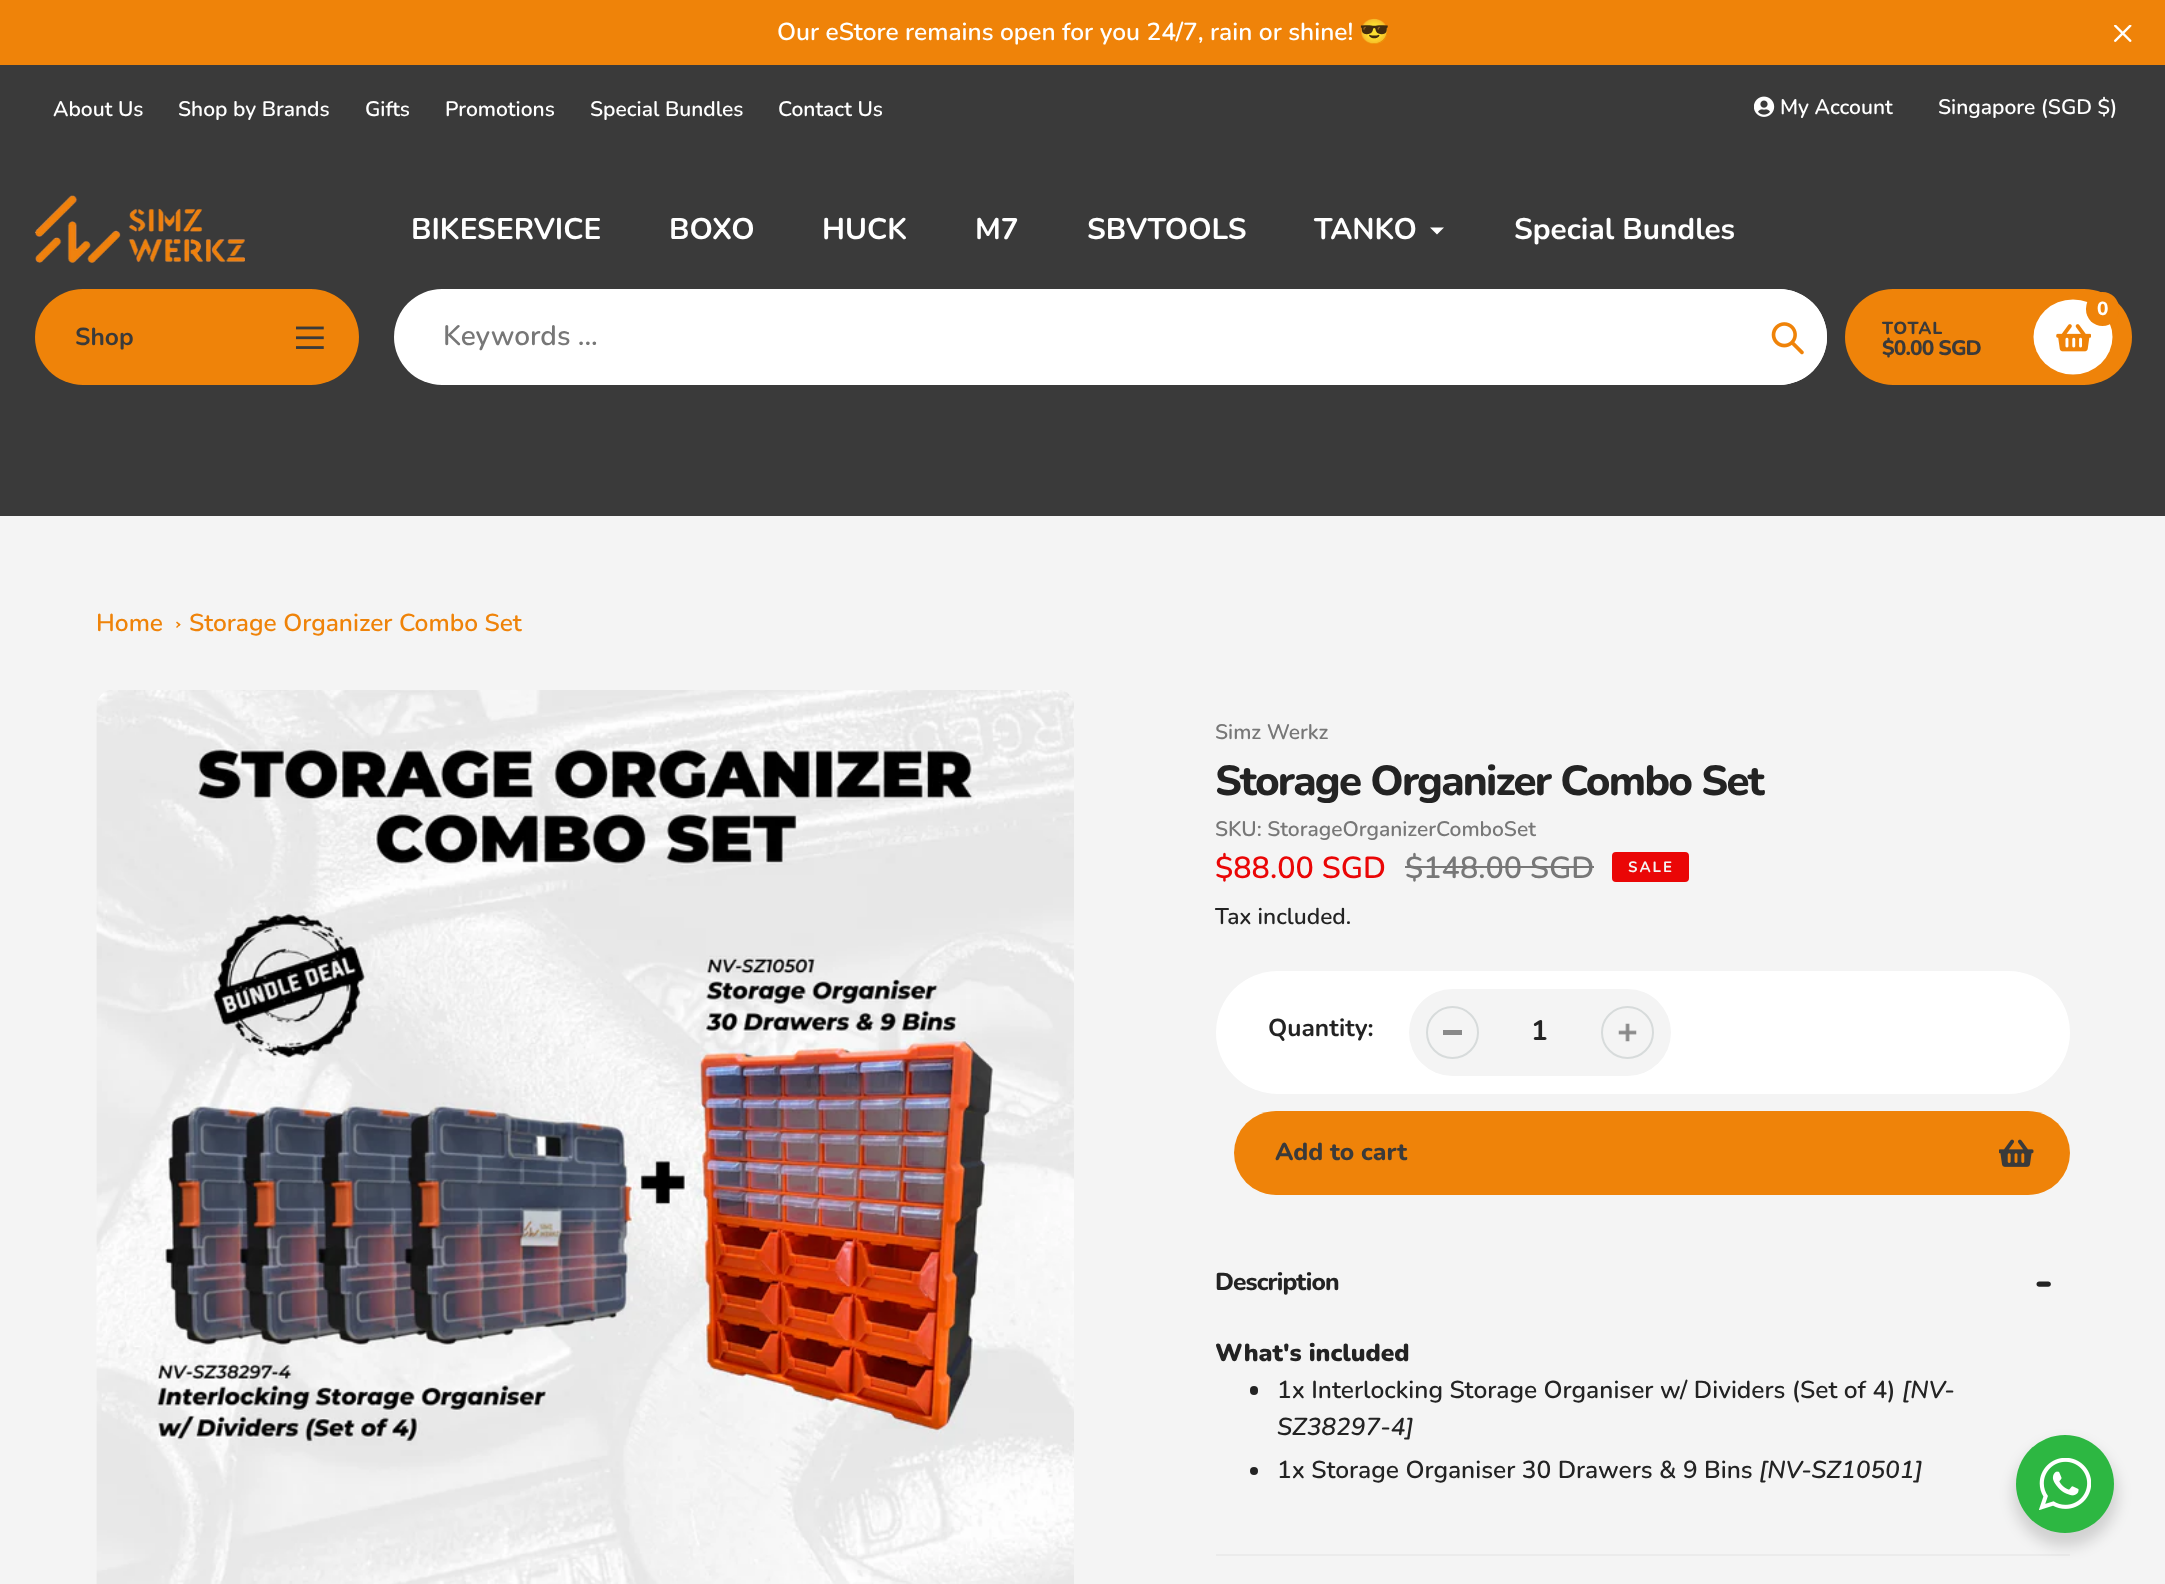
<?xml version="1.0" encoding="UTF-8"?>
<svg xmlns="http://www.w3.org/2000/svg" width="2165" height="1584">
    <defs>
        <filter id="blur1" x="-50%" y="-200%" width="200%" height="500%"><feGaussianBlur stdDeviation="7"/></filter>
    </defs>
    <rect width="100%" height="100%" fill="#F4F4F4"/>
    <rect x="0" y="0" width="2165" height="65" fill="#EF8309"/>
    <text x="777" y="40" font-family="Nunito" font-size="24.5" font-weight="600" fill="#FFFFFF">Our eStore remains open for you 24/7, rain or shine!</text>
    <text x="1359" y="40" font-family="Noto Color Emoji" font-size="24.5" font-weight="700" fill="#FFFFFF">😎</text>
    <image x="2114" y="25" width="18" height="17" href="img_01.png"/>
    <rect x="0" y="65" width="2165" height="451" fill="#3A3A3A"/>
    <text x="53" y="116" font-family="Nunito" font-size="21" font-weight="600" fill="#FFFFFF">About Us</text>
    <text x="178" y="116" font-family="Nunito" font-size="21" font-weight="600" fill="#FFFFFF">Shop by Brands</text>
    <text x="365" y="116" font-family="Nunito" font-size="21" font-weight="600" fill="#FFFFFF">Gifts</text>
    <text x="445" y="116" font-family="Nunito" font-size="21" font-weight="600" fill="#FFFFFF">Promotions</text>
    <text x="590" y="116" font-family="Nunito" font-size="21" font-weight="600" fill="#FFFFFF">Special Bundles</text>
    <text x="778" y="116" font-family="Nunito" font-size="21" font-weight="600" fill="#FFFFFF">Contact Us</text>
    <image x="1754" y="96" width="21" height="21" href="img_02.png"/>
    <text x="1780" y="114" font-family="Nunito" font-size="21" font-weight="600" fill="#FFFFFF">My Account</text>
    <text x="1938" y="114" font-family="Nunito" font-size="21" font-weight="600" fill="#FFFFFF">Singapore (SGD $)</text>
    <image x="35" y="195" width="210" height="68" href="img_03.png"/>
    <text x="411" y="239" font-family="Nunito" font-size="29.75" font-weight="700" fill="#FFFFFF">BIKESERVICE</text>
    <text x="669" y="239" font-family="Nunito" font-size="29.75" font-weight="700" fill="#FFFFFF">BOXO</text>
    <text x="822" y="239" font-family="Nunito" font-size="29.75" font-weight="700" fill="#FFFFFF">HUCK</text>
    <text x="975" y="239" font-family="Nunito" font-size="29.75" font-weight="700" fill="#FFFFFF">M7</text>
    <text x="1087" y="239" font-family="Nunito" font-size="29.75" font-weight="700" fill="#FFFFFF">SBVTOOLS</text>
    <text x="1314" y="239" font-family="Nunito" font-size="29.75" font-weight="700" fill="#FFFFFF">TANKO</text>
    <path d="M 1444 227.5 L 1437 234.5 L 1430 227.5" fill="#FFFFFF"/>
    <text x="1514" y="239" font-family="Nunito" font-size="29.75" font-weight="700" fill="#FFFFFF">Special Bundles</text>
    <rect x="35" y="289" width="324" height="96" rx="48" fill="#EF8309"/>
    <text x="75" y="345" font-family="Nunito" font-size="24.5" font-weight="700" fill="#3A3A3A">Shop</text>
    <image x="296" y="326" width="28" height="23" href="img_04.png"/>
    <rect x="394" y="289" width="1433" height="96" rx="48" fill="#FFFFFF"/>
    <rect x="411" y="289" width="1416" height="96" rx="48" fill="#FFFFFF"/>
    <text x="443" y="345" font-family="Nunito" font-size="28" font-weight="600" fill="#777777">Keywords ...</text>
    <image x="1771" y="322" width="33" height="33" href="img_05.png"/>
    <rect x="1845" y="289" width="287" height="96" rx="48" fill="#EF8309"/>
    <ellipse cx="2073" cy="337" rx="39.5" ry="37.5" fill="#FFFFFF"/>
    <image x="2056" y="324" width="35" height="28" href="img_06.png"/>
    <rect x="2086" y="292" width="33" height="34" rx="16.5" fill="#EF8309"/>
    <text x="2097" y="315" font-family="Nunito" font-size="19" font-weight="800" fill="#FFFFFF">0</text>
    <text x="1882" y="334" font-family="Nunito" font-size="17.5" font-weight="800" letter-spacing="1" fill="#3A3A3A">TOTAL</text>
    <text x="1882" y="355" font-family="Nunito" font-size="21" font-weight="800" letter-spacing="-0.9" fill="#3A3A3A">$0.00 SGD</text>
    <text x="96" y="631" font-family="Nunito" font-size="24.5" font-weight="600" fill="#EF8309">Home</text>
    <path d="M 177 621.5 L 180.5 624.5 L 179.5 626 L 176 622.5 Z" fill="#EF8309"/>
    <path d="M 179.5 623.5 L 180.5 624.5 L 177 628 L 176 627 Z" fill="#EF8309"/>
    <text x="189" y="631" font-family="Nunito" font-size="24.5" font-weight="600" fill="#EF8309">Storage Organizer Combo Set</text>
    <image x="96" y="690" width="978" height="894" href="img_07.png"/>
    <text x="1215" y="739" font-family="Nunito" font-size="21" font-weight="600" fill="#777777">Simz Werkz</text>
    <text x="1215" y="795" font-family="Nunito" font-size="42" font-weight="800" letter-spacing="-1.75" fill="#232323">Storage Organizer Combo Set</text>
    <text x="1215" y="836" font-family="Nunito" font-size="21" font-weight="600" fill="#777777">SKU: StorageOrganizerComboSet</text>
    <text x="1215" y="878" font-family="Nunito" font-size="30.5" font-weight="600" fill="#EA0606">$88.00 SGD</text>
    <text x="1405" y="878" font-family="Nunito" font-size="30.5" font-weight="600" fill="#777777">$148.00 SGD</text>
    <rect x="1405" y="866" width="189" height="2" fill="#777777"/>
    <rect x="1613" y="853" width="75" height="28" rx="3" fill="#EA0606" stroke="#EA0606" stroke-width="2"/>
    <text x="1628" y="872" font-family="Nunito" font-size="15" font-weight="700" letter-spacing="2" fill="#F4F4F4">SALE</text>
    <text x="1215" y="924" font-family="Nunito" font-size="22.75" font-weight="600" fill="#232323">Tax included.</text>
    <rect x="1216" y="971" width="854" height="123" rx="61.5" fill="#FFFFFF"/>
    <text x="1268" y="1036" font-family="Nunito" font-size="24.5" font-weight="700" fill="#232323">Quantity:</text>
    <rect x="1409" y="989" width="262" height="87" rx="43.5" fill="#F4F4F4"/>
    <rect x="1443" y="1030" width="19" height="5" fill="#898989"/>
    <circle cx="1452.5" cy="1032.5" r="25.5" fill="none" stroke="#D7DBDB" stroke-width="2"/>
    <text x="1531" y="1040" font-family="Nunito" font-size="28" font-weight="700" fill="#232323">1</text>
    <image x="1618" y="1023" width="19" height="19" href="img_08.png"/>
    <circle cx="1627.5" cy="1032.5" r="25.5" fill="none" stroke="#D7DBDB" stroke-width="2"/>
    <rect x="1234" y="1111" width="836" height="84" rx="42" fill="#EF8309"/>
    <text x="1275" y="1160" font-family="Nunito" font-size="24.5" font-weight="800" fill="#3A3A3A">Add to cart</text>
    <image x="1999" y="1139" width="35" height="28" href="img_09.png"/>
    <rect x="1216" y="1554" width="854" height="2" fill="#EBEBEB"/>
    <text x="1215" y="1290" font-family="Nunito" font-size="24.5" font-weight="800" letter-spacing="-0.9" fill="#232323">Description</text>
    <text x="2034" y="1296" font-family="Nunito" font-size="44" font-weight="800" letter-spacing="-0.9" fill="#232323">-</text>
    <text x="1215" y="1361" font-family="Nunito" font-size="24.5" font-weight="900" fill="#232323">What's included</text>
    <rect x="1250" y="1386" width="8" height="9" rx="4" fill="#232323"/>
    <text x="1277" y="1398" font-family="Nunito" font-size="24.5" font-weight="600" fill="#232323">1x Interlocking Storage Organiser w/ Dividers (Set of 4)</text>
    <text x="1902" y="1398" font-family="Nunito" font-size="24.5" font-weight="600" font-style="italic" fill="#232323">[NV-</text>
    <text x="1277" y="1435" font-family="Nunito" font-size="24.5" font-weight="600" font-style="italic" fill="#232323">SZ38297-4]</text>
    <circle cx="1254" cy="1471" r="4" fill="#232323"/>
    <text x="1277" y="1478" font-family="Nunito" font-size="24.5" font-weight="600" fill="#232323">1x Storage Organiser 30 Drawers &amp; 9 Bins</text>
    <text x="1759" y="1478" font-family="Nunito" font-size="24.5" font-weight="600" font-style="italic" fill="#232323">[NV-SZ10501]</text>
    <rect x="2013" y="1442" width="105" height="105" rx="52.5" fill="#000000" fill-opacity="0.14" filter="url(#blur1)"/>
    <circle cx="2065" cy="1484" r="49" fill="#2DB742"/>
    <image x="2039" y="1458" width="52" height="52" href="img_10.png"/>
</svg>
